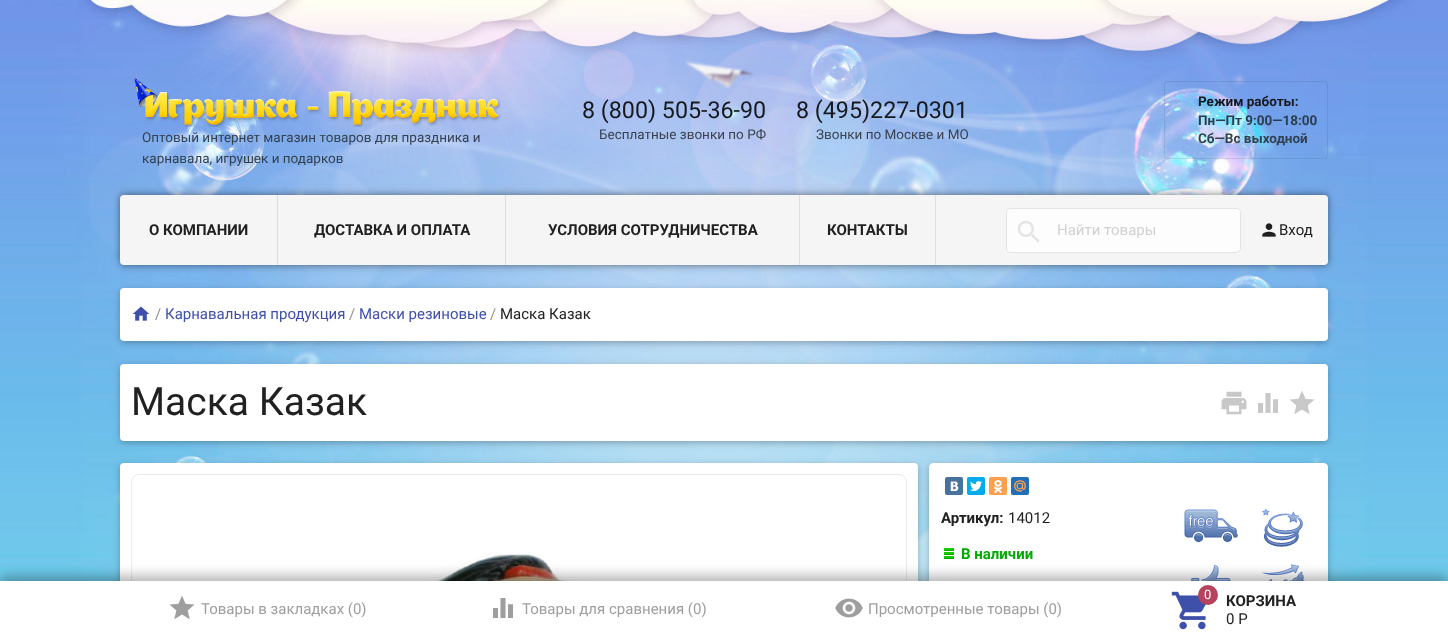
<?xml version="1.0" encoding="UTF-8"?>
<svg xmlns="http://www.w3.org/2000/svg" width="1448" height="637">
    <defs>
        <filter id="blur1" x="-50%" y="-200%" width="200%" height="500%"><feGaussianBlur stdDeviation="5"/></filter>
        <filter id="blur2" x="-50%" y="-200%" width="200%" height="500%"><feGaussianBlur stdDeviation="2.5"/></filter>
        <filter id="blur3" x="-50%" y="-200%" width="200%" height="500%"><feGaussianBlur stdDeviation="7.5"/></filter>
        <filter id="blur4" x="-50%" y="-200%" width="200%" height="500%"><feGaussianBlur stdDeviation="5.5"/></filter>
    </defs>
    <rect width="100%" height="100%" fill="#FFFFFF"/>
    <image x="0" y="0" width="1448" height="581" href="img_01.png"/>
    <text x="582" y="118" font-family="Roboto" font-size="23.25" fill="#16191F">8 (800) 505-36-90</text>
    <text x="599" y="139" font-family="Roboto" font-size="13.5" fill="#3A4150">Бесплатные звонки по РФ</text>
    <text x="796" y="118" font-family="Roboto" font-size="23.25" fill="#16191F">8 (495)227-0301</text>
    <text x="816" y="139" font-family="Roboto" font-size="13.5" fill="#3A4150">Звонки по Москве и МО</text>
    <rect x="1164.5" y="81.5" width="163" height="77" rx="3.5" fill="none" stroke="#333333" stroke-opacity="0.12"/>
    <text x="1198" y="106" font-family="Roboto" font-size="13.5" font-weight="700" fill="#16191F">Режим работы:</text>
    <text x="1198" y="125" font-family="Roboto" font-size="13.5" font-weight="700" fill="#2B3E50">Пн—Пт 9:00—18:00</text>
    <text x="1198" y="143" font-family="Roboto" font-size="13.5" font-weight="700" fill="#334150">Сб—Вс выходной</text>
    <image x="134" y="77" width="367" height="50" href="img_02.png"/>
    <text font-family="Roboto" font-size="13.5" fill="#334150">
        <tspan x="142" y="142">Оптовый интернет магазин товаров для праздника и</tspan>
        <tspan x="142" y="163">карнавала, игрушек и подарков</tspan>
    </text>
    <rect x="120" y="193" width="1208" height="70" rx="4" fill="#000000" fill-opacity="0.12" filter="url(#blur1)"/>
    <rect x="120" y="193" width="1208" height="70" rx="4" fill="#000000" fill-opacity="0.16" filter="url(#blur2)"/>
    <rect x="120" y="197" width="1208" height="70" rx="4" fill="#000000" fill-opacity="0.12" filter="url(#blur1)"/>
    <rect x="120" y="197" width="1208" height="70" rx="4" fill="#000000" fill-opacity="0.16" filter="url(#blur2)"/>
    <rect x="120" y="195" width="1208" height="70" rx="4" fill="#F5F5F5"/>
    <text x="149" y="235" font-family="Roboto" font-size="15" font-weight="700" fill="#212121">О КОМПАНИИ</text>
    <rect x="277" y="195" width="1" height="70" fill="#DEDEDE"/>
    <text x="314" y="235" font-family="Roboto" font-size="15" font-weight="700" fill="#212121">ДОСТАВКА И ОПЛАТА</text>
    <rect x="505" y="195" width="1" height="70" fill="#DEDEDE"/>
    <text x="548" y="235" font-family="Roboto" font-size="15" font-weight="700" fill="#212121">УСЛОВИЯ СОТРУДНИЧЕСТВА</text>
    <rect x="799" y="195" width="1" height="70" fill="#DEDEDE"/>
    <text x="827" y="235" font-family="Roboto" font-size="15" font-weight="700" fill="#212121">КОНТАКТЫ</text>
    <rect x="935" y="195" width="1" height="70" fill="#DEDEDE"/>
    <rect x="1006" y="208" width="235" height="45" rx="4" fill="#FDFDFD"/>
    <rect x="1006.5" y="208.5" width="234" height="44" rx="3.5" fill="none" stroke="#333333" stroke-opacity="0.12"/>
    <image x="1017" y="220" width="23" height="23" href="img_03.png"/>
    <text x="1057" y="235" font-family="Roboto" font-size="15" fill="#D1D1D1">Найти товары</text>
    <image x="1262" y="223" width="14" height="14" href="img_04.png"/>
    <text x="1279" y="235" font-family="Roboto" font-size="15" fill="#212121">Вход</text>
    <rect x="120" y="290" width="1208" height="53" rx="4" fill="#000000" fill-opacity="0.12" filter="url(#blur1)"/>
    <rect x="120" y="290" width="1208" height="53" rx="4" fill="#000000" fill-opacity="0.16" filter="url(#blur2)"/>
    <rect x="120" y="288" width="1208" height="53" rx="4" fill="#FFFFFF"/>
    <image x="132" y="306" width="18" height="15" href="img_05.png"/>
    <text x="155" y="319" font-family="Roboto" font-size="15" fill="#919191">/</text>
    <text x="165" y="319" font-family="Roboto" font-size="15" fill="#3F50AA">Карнавальная продукция</text>
    <text x="349" y="319" font-family="Roboto" font-size="15" fill="#919191">/</text>
    <text x="359" y="319" font-family="Roboto" font-size="15" fill="#3F50AA">Маски резиновые</text>
    <text x="490" y="319" font-family="Roboto" font-size="15" fill="#919191">/</text>
    <text x="500" y="319" font-family="Roboto" font-size="15" fill="#212121">Маска Казак</text>
    <rect x="120" y="366" width="1208" height="77" rx="4" fill="#000000" fill-opacity="0.12" filter="url(#blur1)"/>
    <rect x="120" y="366" width="1208" height="77" rx="4" fill="#000000" fill-opacity="0.16" filter="url(#blur2)"/>
    <rect x="120" y="364" width="1208" height="77" rx="4" fill="#FFFFFF"/>
    <text x="131" y="415" font-family="Roboto" font-size="39" fill="#212121">Маска Казак</text>
    <image x="1221" y="391" width="26" height="24" href="img_06.png"/>
    <image x="1258" y="393" width="20" height="20" href="img_07.png"/>
    <image x="1289" y="391" width="26" height="23" href="img_08.png"/>
    <rect x="929" y="465" width="399" height="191" rx="4" fill="#000000" fill-opacity="0.12" filter="url(#blur1)"/>
    <rect x="929" y="465" width="399" height="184" rx="4" fill="#000000" fill-opacity="0.16" filter="url(#blur2)"/>
    <rect x="929.5" y="463.5" width="398" height="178" rx="3.5" fill="#FFFFFF" stroke="#FFFFFF"/>
    <rect x="120" y="465" width="798" height="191" rx="4" fill="#000000" fill-opacity="0.12" filter="url(#blur1)"/>
    <rect x="120" y="465" width="798" height="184" rx="4" fill="#000000" fill-opacity="0.16" filter="url(#blur2)"/>
    <rect x="120" y="463" width="798" height="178" rx="4" fill="#FFFFFF"/>
    <rect x="131.5" y="474.5" width="775" height="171" rx="7.5" fill="none" stroke="#EBEBEB"/>
    <image x="381" y="552" width="278" height="29" href="img_09.png"/>
    <rect x="945" y="477" width="18" height="18" rx="2" fill="#48729E"/>
    <image x="950" y="481" width="9" height="10" href="img_10.png"/>
    <rect x="967" y="477" width="18" height="18" rx="2" fill="#00ACED"/>
    <image x="970" y="481" width="12" height="10" href="img_11.png"/>
    <rect x="989" y="477" width="18" height="18" rx="2" fill="#FF9F4D"/>
    <image x="994" y="480" width="8" height="13" href="img_12.png"/>
    <rect x="1011" y="477" width="18" height="18" rx="2" fill="#226EB7"/>
    <image x="1014" y="480" width="12" height="12" href="img_13.png"/>
    <text x="941" y="523" font-family="Roboto" font-size="15" font-weight="700" fill="#212121">Артикул:</text>
    <text x="1008" y="523" font-family="Roboto" font-size="15" fill="#212121">14012</text>
    <image x="1184" y="509" width="54" height="33" href="img_14.png"/>
    <image x="1262" y="508" width="41" height="39" href="img_15.png"/>
    <image x="1191" y="565" width="40" height="16" href="img_16.png"/>
    <image x="1262" y="564" width="43" height="17" href="img_17.png"/>
    <image x="944" y="548" width="10" height="11" href="img_18.png"/>
    <text x="961" y="559" font-family="Roboto" font-size="15" font-weight="700" fill="#00AA00">В наличии</text>
    <rect x="0" y="577" width="1448" height="56" fill="#000000" fill-opacity="0.15" filter="url(#blur3)"/>
    <rect x="0" y="576" width="1448" height="56" fill="#000000" fill-opacity="0.18" filter="url(#blur4)"/>
    <rect x="0" y="581" width="1448" height="56" fill="#FFFFFF"/>
    <image x="169" y="595" width="26" height="25" href="img_19.png"/>
    <text x="201" y="614" font-family="Roboto" font-size="15" fill="#9E9E9E">Товары в закладках (0)</text>
    <image x="493" y="598" width="20" height="20" href="img_20.png"/>
    <text x="522" y="614" font-family="Roboto" font-size="15" fill="#9E9E9E">Товары для сравнения (0)</text>
    <image x="835" y="598" width="28" height="20" href="img_21.png"/>
    <text x="868" y="614" font-family="Roboto" font-size="15" fill="#9E9E9E">Просмотренные товары (0)</text>
    <image x="1171" y="591" width="35" height="39" href="img_22.png"/>
    <circle cx="1208" cy="595" r="10" fill="#B5435D"/>
    <text x="1204" y="599" font-family="Roboto" font-size="13" fill="#FFFFFF">0</text>
    <text x="1226" y="606" font-family="Roboto" font-size="15" font-weight="700" fill="#212121">КОРЗИНА</text>
    <text x="1226" y="624" font-family="Roboto" font-size="15" fill="#212121">0 Р</text>
</svg>
